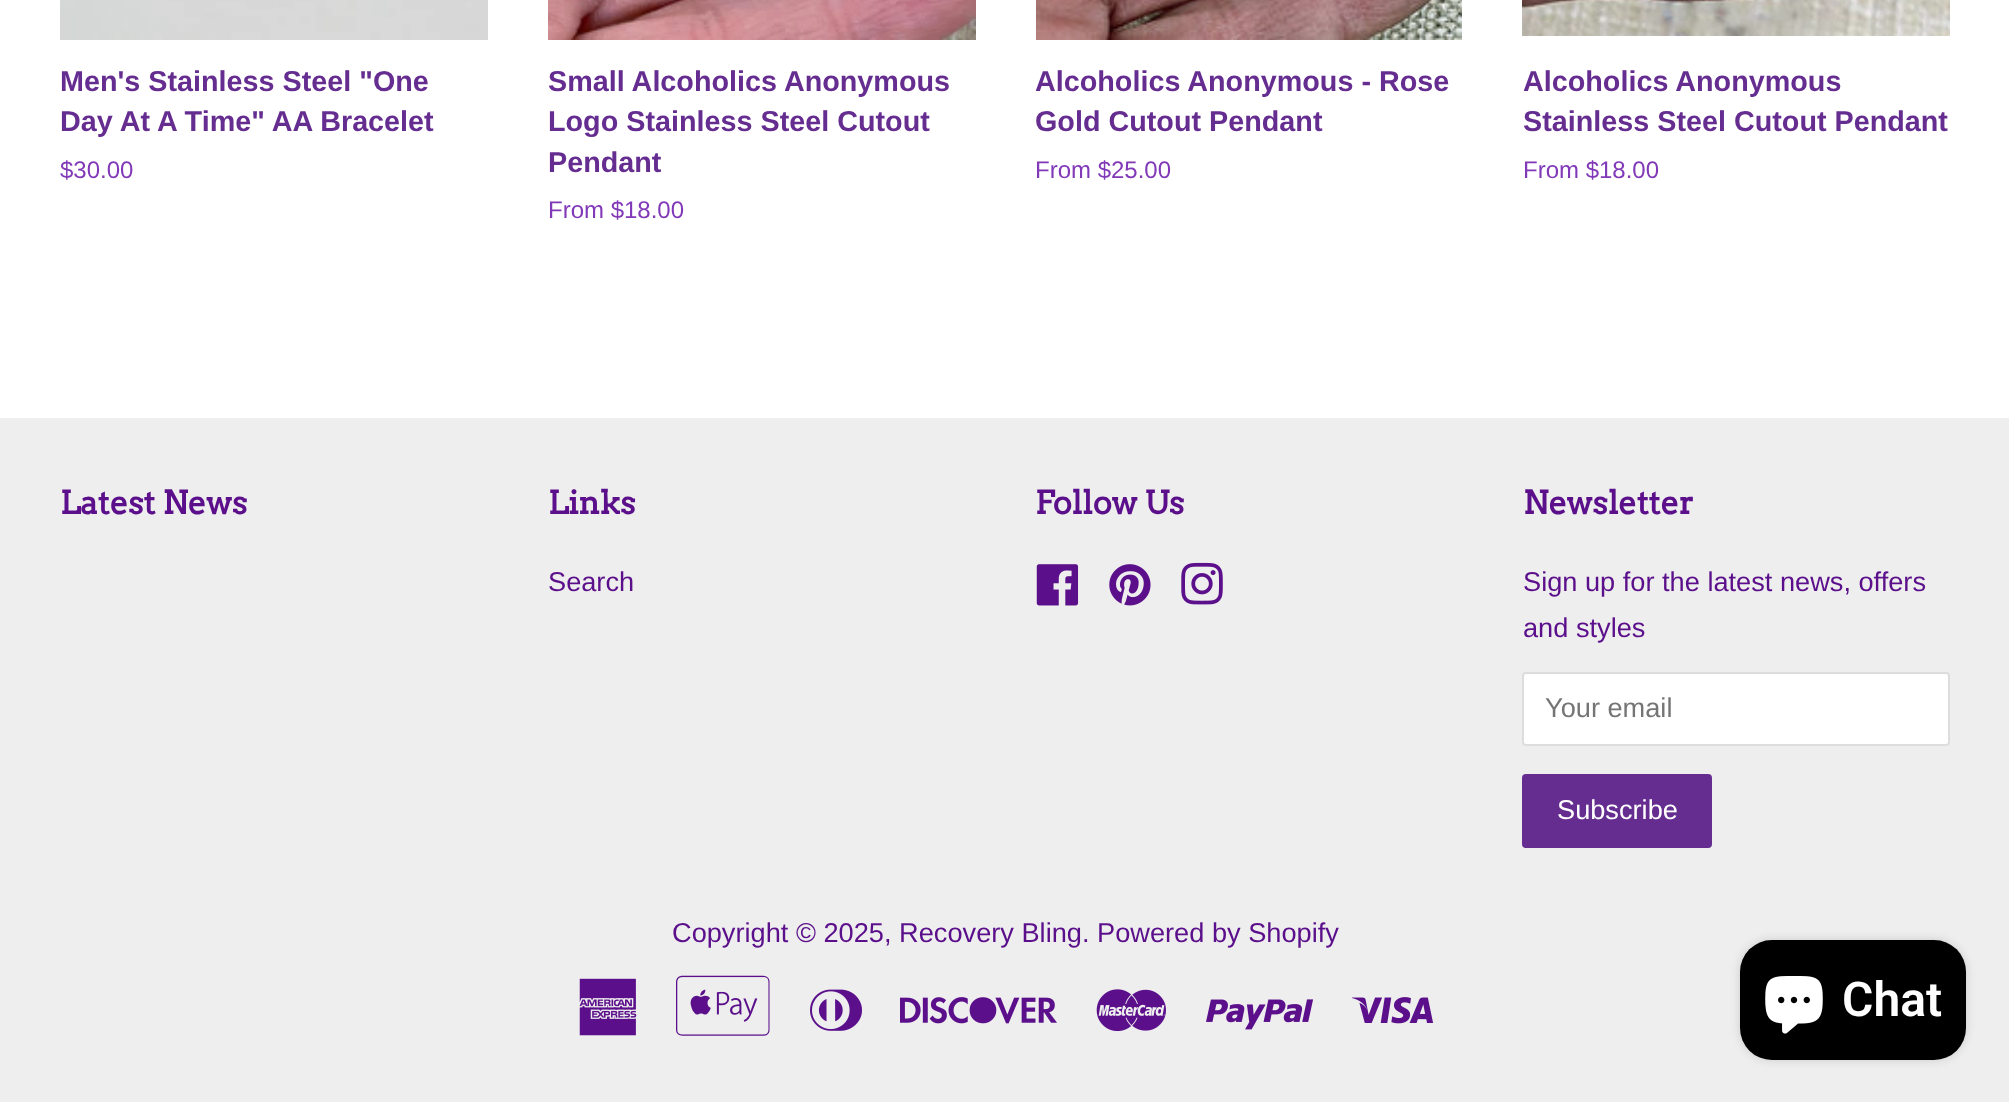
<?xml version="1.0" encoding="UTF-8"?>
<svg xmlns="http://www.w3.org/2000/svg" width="2009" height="1102">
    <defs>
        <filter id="blur1" x="-50%" y="-200%" width="200%" height="500%"><feGaussianBlur stdDeviation="5"/></filter>
    </defs>
    <rect width="100%" height="100%" fill="#FFFFFF"/>
    <image x="60" y="0" width="428" height="40" href="img_01.png"/>
    <text font-family="Liberation Sans" font-size="28.75" font-weight="700" fill="#662D91">
        <tspan x="60" y="91">Men's Stainless Steel "One</tspan>
        <tspan x="60" y="131">Day At A Time" AA Bracelet</tspan>
    </text>
    <text x="60" y="178" font-family="Liberation Sans" font-size="24" fill="#8139B8">$30.00</text>
    <image x="548" y="0" width="428" height="40" href="img_02.png"/>
    <text font-family="Liberation Sans" font-size="28.75" font-weight="700" fill="#662D91">
        <tspan x="548" y="91">Small Alcoholics Anonymous</tspan>
        <tspan x="548" y="131">Logo Stainless Steel Cutout</tspan>
        <tspan x="548" y="172">Pendant</tspan>
    </text>
    <text x="548" y="218" font-family="Liberation Sans" font-size="24" fill="#8139B8">From $18.00</text>
    <image x="1036" y="0" width="426" height="40" href="img_03.png"/>
    <text font-family="Liberation Sans" font-size="28.75" font-weight="700" fill="#662D91">
        <tspan x="1035" y="91">Alcoholics Anonymous - Rose</tspan>
        <tspan x="1035" y="131">Gold Cutout Pendant</tspan>
    </text>
    <text x="1035" y="178" font-family="Liberation Sans" font-size="24" fill="#8139B8">From $25.00</text>
    <image x="1522" y="0" width="428" height="36" href="img_04.png"/>
    <text font-family="Liberation Sans" font-size="28.75" font-weight="700" fill="#662D91">
        <tspan x="1523" y="91">Alcoholics Anonymous</tspan>
        <tspan x="1523" y="131">Stainless Steel Cutout Pendant</tspan>
    </text>
    <text x="1523" y="178" font-family="Liberation Sans" font-size="24" fill="#8139B8">From $18.00</text>
    <rect x="0" y="418" width="2009" height="684" fill="#EEEEEE"/>
    <text x="60" y="514" font-family="Arvo" font-size="32" font-weight="700" fill="#5B0F8B">Latest News</text>
    <text x="548" y="514" font-family="Arvo" font-size="32" font-weight="700" fill="#5B0F8B">Links</text>
    <text x="548" y="591" font-family="Liberation Sans" font-size="27.2" fill="#5B0F8B">Search</text>
    <text x="1035" y="514" font-family="Arvo" font-size="32" font-weight="700" fill="#5B0F8B">Follow Us</text>
    <image x="1036" y="564" width="43" height="42" href="img_05.png"/>
    <image x="1109" y="564" width="42" height="42" href="img_06.png"/>
    <image x="1181" y="562" width="42" height="43" href="img_07.png"/>
    <text x="1523" y="514" font-family="Arvo" font-size="32" font-weight="700" fill="#5B0F8B">Newsletter</text>
    <text font-family="Liberation Sans" font-size="27.2" fill="#5B0F8B">
        <tspan x="1523" y="591">Sign up for the latest news, offers</tspan>
        <tspan x="1523" y="637">and styles</tspan>
    </text>
    <rect x="1523" y="673" width="426" height="72" rx="3" fill="#FFFFFF" stroke="#DDDDDD" stroke-width="2"/>
    <text x="1545" y="717" font-family="Liberation Sans" font-size="27.2" fill="#757575">Your email</text>
    <rect x="1522" y="774" width="190" height="74" rx="4" fill="#662D91"/>
    <text x="1557" y="819" font-family="Liberation Sans" font-size="27.2" fill="#FFFFFF">Subscribe</text>
    <text x="672" y="942" font-family="Liberation Sans" font-size="27.2" fill="#5B0F8B">Copyright © 2025, Recovery Bling. Powered by Shopify</text>
    <image x="579" y="978" width="58" height="58" href="img_08.png"/>
    <image x="676" y="975" width="94" height="61" href="img_09.png"/>
    <image x="810" y="989" width="52" height="42" href="img_10.png"/>
    <image x="900" y="997" width="157" height="27" href="img_11.png"/>
    <image x="1096" y="989" width="70" height="43" href="img_12.png"/>
    <image x="1206" y="999" width="108" height="31" href="img_13.png"/>
    <image x="1352" y="997" width="82" height="27" href="img_14.png"/>
    <rect x="1740" y="940" width="226" height="120" rx="32" fill="#000000" fill-opacity="0.15" filter="url(#blur1)"/>
    <rect x="1740" y="940" width="226" height="120" rx="32" fill="#000000"/>
    <image x="1765" y="976" width="58" height="58" href="img_15.png"/>
    <text x="1842" y="1016" font-family="Roboto" font-size="48" font-weight="600" fill="#FFFFFF">Chat</text>
</svg>
